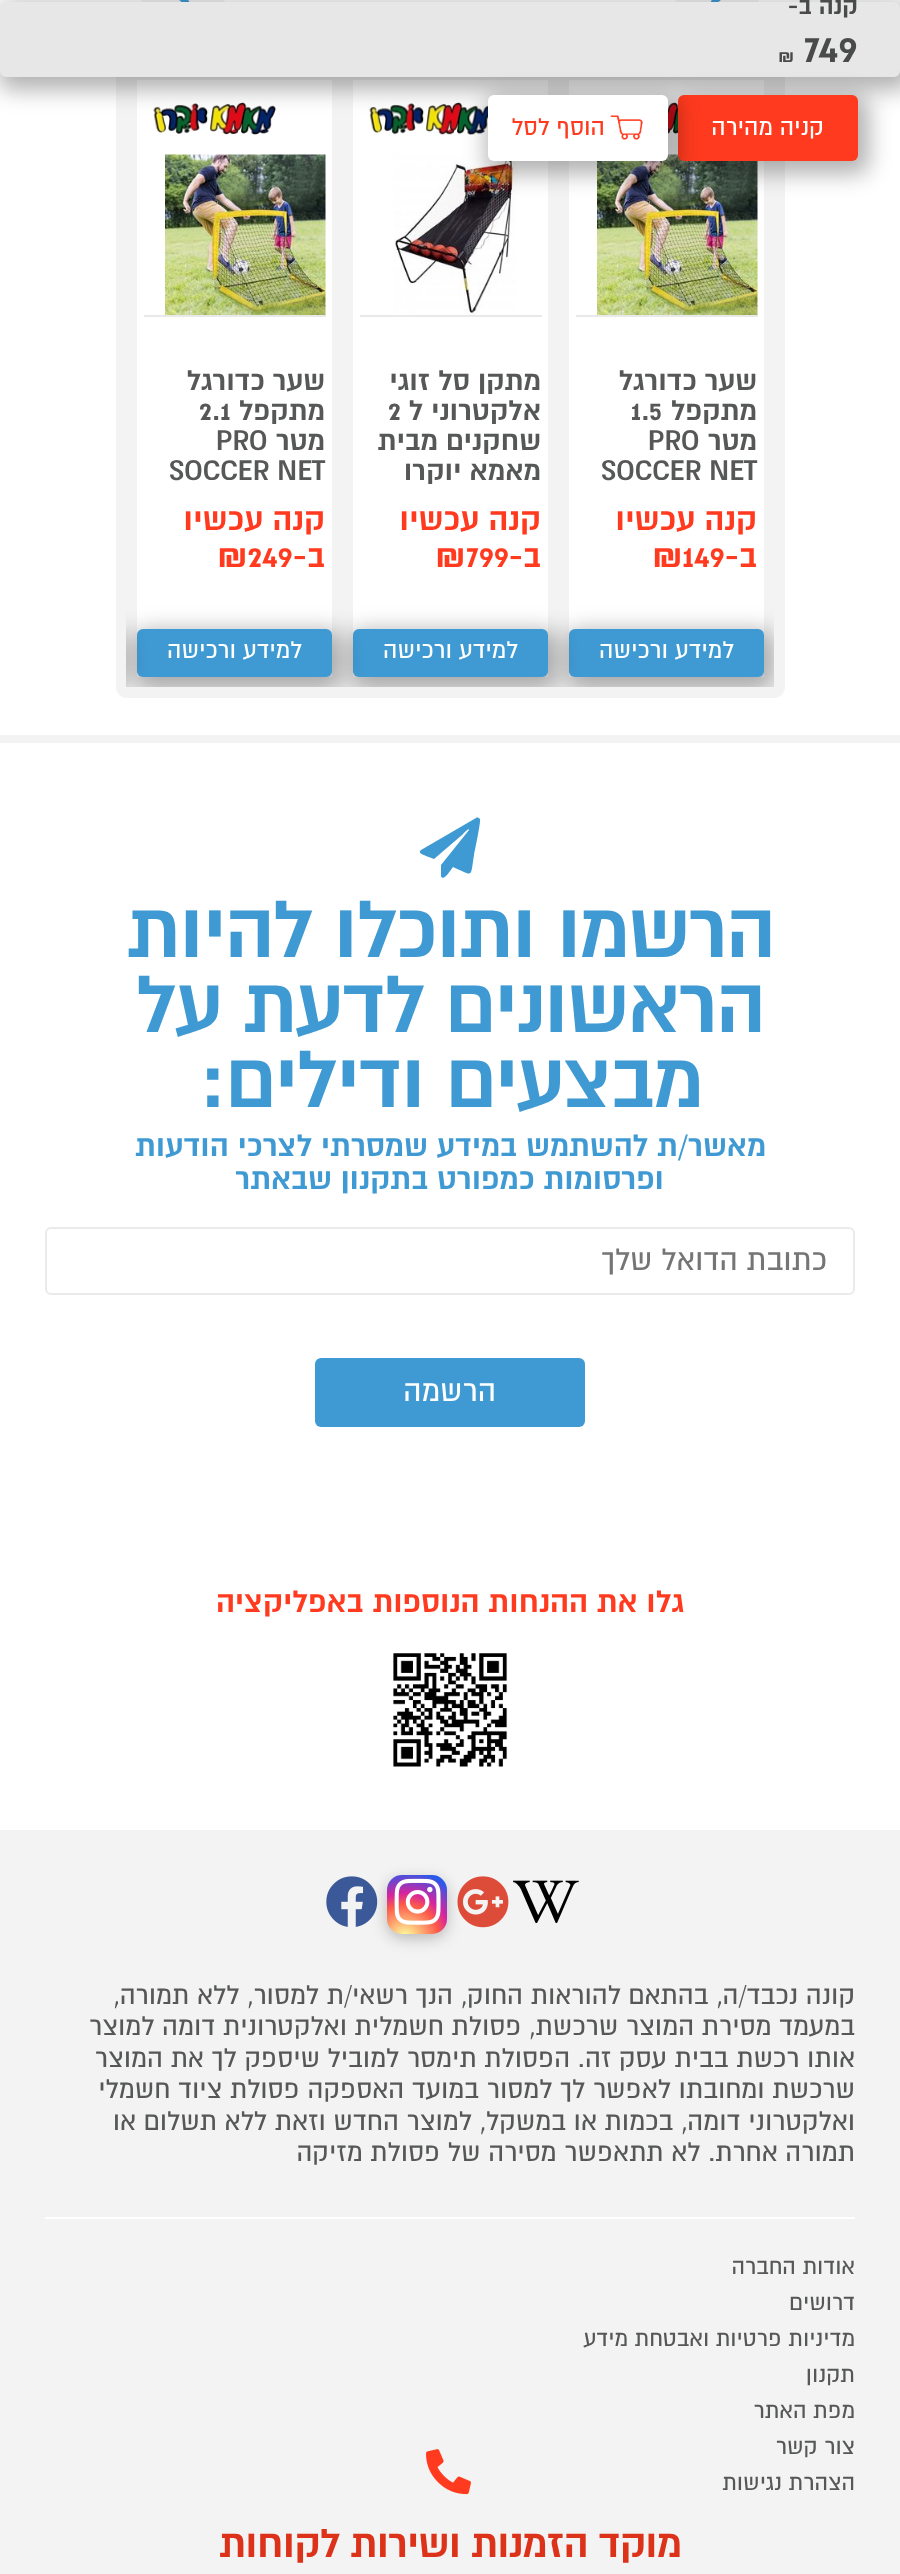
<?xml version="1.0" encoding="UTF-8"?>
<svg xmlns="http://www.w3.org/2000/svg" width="900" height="2574">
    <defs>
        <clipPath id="clip1"><rect x="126" y="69" width="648" height="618"/></clipPath>
        <filter id="blur1" x="-50%" y="-200%" width="200%" height="500%"><feGaussianBlur stdDeviation="11"/></filter>
        <filter id="blur2" x="-50%" y="-200%" width="200%" height="500%"><feGaussianBlur stdDeviation="7.5"/></filter>
        <radialGradient id="g1" gradientUnits="userSpaceOnUse" cx="405" cy="1938" r="75"><stop offset="0" stop-color="#FDF497"/><stop offset="0.05" stop-color="#FDF497"/><stop offset="0.45" stop-color="#FD5949"/><stop offset="0.6" stop-color="#D6249F"/><stop offset="0.9" stop-color="#285AEB"/></radialGradient>
    </defs>
    <rect width="100%" height="100%" fill="#FFFFFF"/>
    <rect x="0" y="735" width="900" height="8" fill="#F3F3F3"/>
    <rect x="116" y="59" width="669" height="639" rx="11" fill="#F3F3F3"/>
    <rect x="675" y="-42" width="84" height="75" rx="42" fill="#F3F3F3"/>
    <image x="710" y="0" width="11" height="2" href="img_02.png"/>
    <rect x="141" y="-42" width="84" height="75" rx="42" fill="#F3F3F3"/>
    <image x="179" y="0" width="11" height="2" href="img_03.png"/>
    <rect x="569" y="80" width="195" height="597" fill="#FFFFFF"/>
    <image x="668" y="102" width="10" height="33" href="img_04.png"/>
    <g clip-path="url(#clip1)">
        <rect x="567" y="630" width="207" height="60" rx="12" fill="#000000" fill-opacity="0.3" filter="url(#blur1)"/>
    </g>
    <rect x="353" y="80" width="195" height="597" fill="#FFFFFF"/>
    <image x="369" y="102" width="119" height="33" href="img_06.png"/>
    <rect x="569" y="629" width="195" height="48" rx="6" fill="#3F9AD3"/>
    <g clip-path="url(#clip1)">
        <rect x="351" y="630" width="207" height="60" rx="12" fill="#000000" fill-opacity="0.3" filter="url(#blur1)"/>
    </g>
    <rect x="137" y="80" width="195" height="597" fill="#FFFFFF"/>
    <image x="153" y="102" width="123" height="33" href="img_08.png"/>
    <rect x="-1" y="3" width="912" height="87" rx="12" fill="#000000" fill-opacity="0.3" filter="url(#blur1)"/>
    <rect x="0" y="2" width="900" height="75" rx="6" fill="#E7E7E7"/>
    <text x="858" y="14" font-family="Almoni" font-size="27" font-weight="700" direction="rtl" fill="#494A4A">קנה ב-</text>
    <text x="803" y="62" font-family="Almoni" font-size="46" font-weight="700" fill="#494A4A">749</text>
    <text x="778" y="62" font-family="Almoni" font-size="19" font-weight="700" fill="#494A4A">₪</text>
    <image x="597" y="154" width="161" height="161" href="img_05.png"/>
    <rect x="677" y="96" width="192" height="78" rx="12" fill="#000000" fill-opacity="0.3" filter="url(#blur1)"/>
    <rect x="678" y="95" width="180" height="66" rx="6" fill="#FF3A1E"/>
    <text x="824" y="135" font-family="Almoni" font-size="27" direction="rtl" fill="#FFFFFF">קניה מהירה</text>
    <image x="394" y="154" width="125" height="161" href="img_07.png"/>
    <rect x="486" y="96" width="192" height="78" rx="12" fill="#000000" fill-opacity="0.3" filter="url(#blur1)"/>
    <rect x="488" y="95" width="180" height="66" rx="6" fill="#FFFFFF"/>
    <image x="610" y="115" width="33" height="25" href="img_01.png"/>
    <text x="605" y="135" font-family="Almoni" font-size="27" direction="rtl" fill="#FF3A1E">הוסף לסל</text>
    <rect x="576" y="315" width="182" height="2" fill="#E9E9E9"/>
    <text font-family="Almoni" font-size="31.5" font-weight="700" direction="rtl" fill="#565757">
        <tspan x="757" y="390">שער כדורגל</tspan>
        <tspan x="757" y="420">מתקפל</tspan>
    </text>
    <text x="631" y="420" font-family="Almoni" font-size="31.5" font-weight="700" fill="#565757">1.5</text>
    <text x="757" y="450" font-family="Almoni" font-size="31.5" font-weight="700" direction="rtl" fill="#565757">מטר</text>
    <text x="648" y="450" font-family="Almoni" font-size="31.5" font-weight="700" fill="#565757">PRO</text>
    <text x="601" y="480" font-family="Almoni" font-size="31.5" font-weight="700" fill="#565757">SOCCER NET</text>
    <text font-family="Almoni" font-size="36" font-weight="700" direction="rtl" fill="#FF3A1E">
        <tspan x="757" y="530">קנה עכשיו</tspan>
        <tspan x="757" y="567">ב-</tspan>
    </text>
    <text x="652" y="567" font-family="Almoni" font-size="36" font-weight="700" fill="#FF3A1E">₪149</text>
    <text x="734" y="658" font-family="Almoni" font-size="27" direction="rtl" fill="#FFFFFF">למידע ורכישה</text>
    <rect x="360" y="315" width="182" height="2" fill="#E9E9E9"/>
    <text font-family="Almoni" font-size="31.5" font-weight="700" direction="rtl" fill="#565757">
        <tspan x="541" y="390">מתקן סל זוגי</tspan>
        <tspan x="541" y="420">אלקטרוני ל</tspan>
    </text>
    <text x="388" y="420" font-family="Almoni" font-size="31.5" font-weight="700" fill="#565757">2</text>
    <text font-family="Almoni" font-size="31.5" font-weight="700" direction="rtl" fill="#565757">
        <tspan x="541" y="450">שחקנים מבית</tspan>
        <tspan x="541" y="480">מאמא יוקרו</tspan>
    </text>
    <text font-family="Almoni" font-size="36" font-weight="700" direction="rtl" fill="#FF3A1E">
        <tspan x="541" y="530">קנה עכשיו</tspan>
        <tspan x="541" y="567">ב-</tspan>
    </text>
    <text x="435" y="567" font-family="Almoni" font-size="36" font-weight="700" fill="#FF3A1E">₪799</text>
    <rect x="353" y="629" width="195" height="48" rx="6" fill="#3F9AD3"/>
    <text x="518" y="658" font-family="Almoni" font-size="27" direction="rtl" fill="#FFFFFF">למידע ורכישה</text>
    <rect x="144" y="315" width="182" height="2" fill="#E9E9E9"/>
    <image x="165" y="154" width="161" height="161" href="img_05.png"/>
    <text font-family="Almoni" font-size="31.5" font-weight="700" direction="rtl" fill="#565757">
        <tspan x="325" y="390">שער כדורגל</tspan>
        <tspan x="325" y="420">מתקפל</tspan>
    </text>
    <text x="199" y="420" font-family="Almoni" font-size="31.5" font-weight="700" fill="#565757">2.1</text>
    <text x="325" y="450" font-family="Almoni" font-size="31.5" font-weight="700" direction="rtl" fill="#565757">מטר</text>
    <text x="216" y="450" font-family="Almoni" font-size="31.5" font-weight="700" fill="#565757">PRO</text>
    <text x="169" y="480" font-family="Almoni" font-size="31.5" font-weight="700" fill="#565757">SOCCER NET</text>
    <text font-family="Almoni" font-size="36" font-weight="700" direction="rtl" fill="#FF3A1E">
        <tspan x="325" y="530">קנה עכשיו</tspan>
        <tspan x="325" y="567">ב-</tspan>
    </text>
    <text x="217" y="567" font-family="Almoni" font-size="36" font-weight="700" fill="#FF3A1E">₪249</text>
    <g clip-path="url(#clip1)">
        <rect x="135" y="630" width="207" height="60" rx="12" fill="#000000" fill-opacity="0.3" filter="url(#blur1)"/>
    </g>
    <rect x="137" y="629" width="195" height="48" rx="6" fill="#3F9AD3"/>
    <text x="302" y="658" font-family="Almoni" font-size="27" direction="rtl" fill="#FFFFFF">למידע ורכישה</text>
    <g clip-path="url(#clip1)">
        <rect x="-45" y="630" width="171" height="60" rx="12" fill="#000000" fill-opacity="0.3" filter="url(#blur1)"/>
    </g>
    <path d="M 476 818 C 477 817 479 818 480 819 C 481 821 475 850 474 855 C 470 879 474 876 453 867 C 452 868 443 883 441 876 V 865 L 469 830 C 469 828 467 830 462 835 L 434 859 L 426 856 C 424 855 417 853 421 850 Z" fill="#3F9AD3"/>
    <text x="774" y="957" font-family="Almoni" font-size="90" font-weight="700" letter-spacing="-1.5" direction="rtl" fill="#3F9AD3">הרשמו ותוכלו להיות</text>
    <text x="764" y="1032" font-family="Almoni" font-size="90" font-weight="700" letter-spacing="-1.5" direction="rtl" fill="#3F9AD3">הראשונים לדעת על</text>
    <text x="702" y="1107" font-family="Almoni" font-size="90" font-weight="700" letter-spacing="-1.5" direction="rtl" fill="#3F9AD3">מבצעים ודילים:</text>
    <text x="766" y="1156" font-family="Almoni" font-size="34.5" font-weight="700" direction="rtl" fill="#3F9AD3">מאשר/ת להשתמש במידע שמסרתי לצרכי הודעות</text>
    <text x="664" y="1189" font-family="Almoni" font-size="34.5" font-weight="700" direction="rtl" fill="#3F9AD3">ופרסומות כמפורט בתקנון שבאתר</text>
    <rect x="46" y="1228" width="808" height="66" rx="5" fill="none" stroke="#EAEAEA" stroke-width="2"/>
    <text x="827" y="1270" font-family="Almoni" font-size="34.5" direction="rtl" fill="#757575">כתובת הדואל שלך</text>
    <rect x="315" y="1358" width="270" height="69" rx="6" fill="#3F9AD3"/>
    <text x="496" y="1401" font-family="Almoni" font-size="34.5" direction="rtl" fill="#FFFFFF">הרשמה</text>
    <text x="684" y="1612" font-family="Almoni" font-size="34.5" font-weight="700" direction="rtl" fill="#FF3A1E">גלו את ההנחות הנוספות באפליקציה</text>
    <image x="393" y="1653" width="115" height="114" href="img_09.png"/>
    <rect x="0" y="1830" width="900" height="744" fill="#F3F3F3"/>
    <rect x="45" y="2217" width="810" height="2" fill="#FFFFFF"/>
    <text font-family="Almoni" font-size="30" direction="rtl" fill="#565757">
        <tspan x="855" y="2004">קונה נכבד/ה, בהתאם להוראות החוק, הנך רשאי/ת למסור, ללא תמורה,</tspan>
        <tspan x="855" y="2035">במעמד מסירת המוצר שרכשת, פסולת חשמלית ואלקטרונית דומה למוצר</tspan>
        <tspan x="855" y="2067">אותו רכשת בבית עסק זה. הפסולת תימסר למוביל שיספק לך את המוצר</tspan>
        <tspan x="855" y="2098">שרכשת ומחובתו לאפשר לך למסור במועד האספקה פסולת ציוד חשמלי</tspan>
        <tspan x="855" y="2130">ואלקטרוני דומה, בכמות או במשקל, למוצר החדש וזאת ללא תשלום או</tspan>
        <tspan x="855" y="2161">תמורה אחרת. לא תתאפשר מסירה של פסולת מזיקה</tspan>
    </text>
    <text font-family="Almoni" font-size="25.5" direction="rtl" fill="#565757">
        <tspan x="855" y="2274">אודות החברה</tspan>
        <tspan x="855" y="2310">דרושים</tspan>
        <tspan x="855" y="2346">מדיניות פרטיות ואבטחת מידע</tspan>
        <tspan x="855" y="2382">תקנון</tspan>
        <tspan x="855" y="2418">מפת האתר</tspan>
        <tspan x="855" y="2454">צור קשר</tspan>
        <tspan x="855" y="2490">הצהרת נגישות</tspan>
    </text>
    <image x="513" y="1880" width="66" height="43" href="img_10.png"/>
    <image x="326" y="1876" width="52" height="51" href="img_13.png"/>
    <rect x="387" y="1880" width="60" height="58" rx="15" fill="#000000" fill-opacity="0.25" filter="url(#blur2)"/>
    <image x="457" y="1876" width="52" height="52" href="img_11.png"/>
    <rect x="387" y="1875" width="60" height="59" rx="15" fill="url(#g1)"/>
    <image x="394" y="1878" width="47" height="47" href="img_12.png"/>
    <image x="426" y="2449" width="45" height="46" href="img_14.png"/>
    <text x="681" y="2557" font-family="Almoni" font-size="45" font-weight="700" letter-spacing="-0.75" direction="rtl" fill="#DD321A">מוקד הזמנות ושירות לקוחות</text>
</svg>
